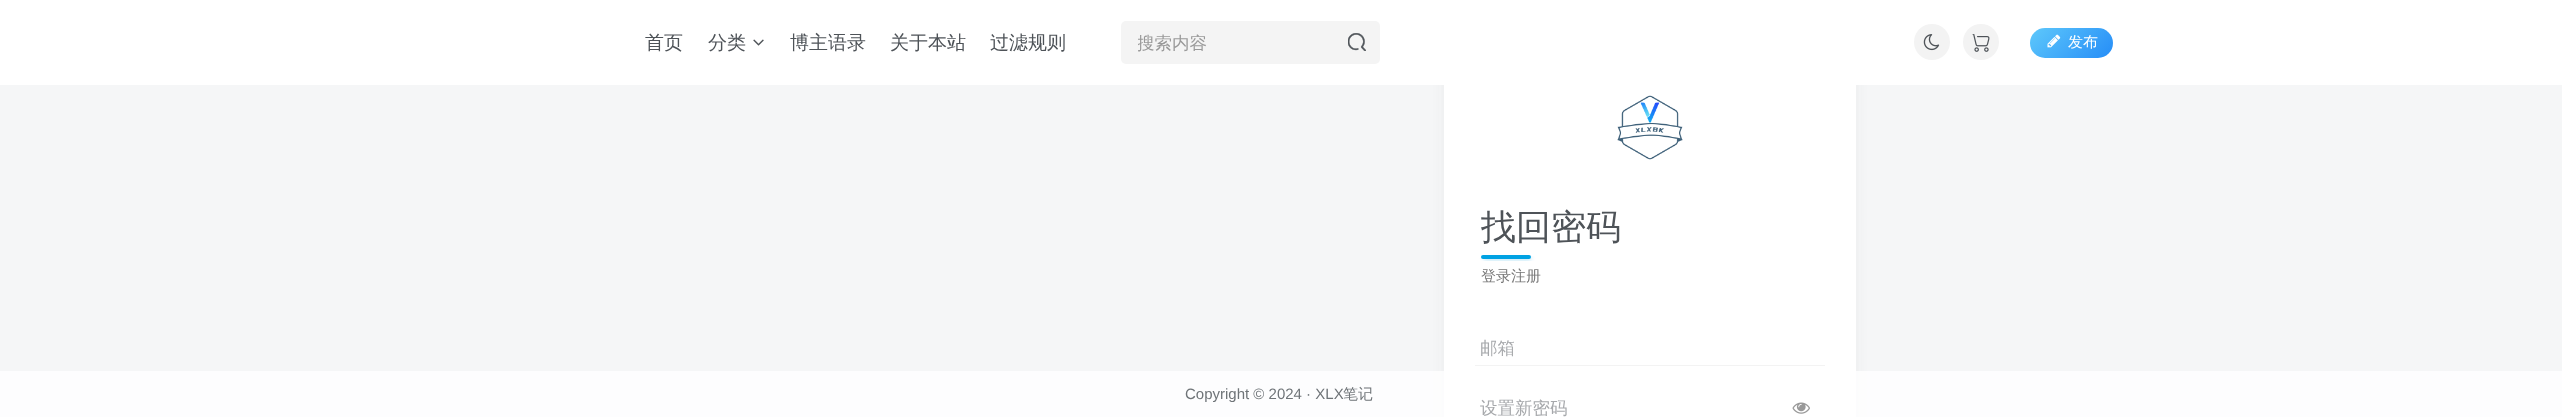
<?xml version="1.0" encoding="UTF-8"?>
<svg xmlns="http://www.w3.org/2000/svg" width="2562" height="417">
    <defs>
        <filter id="blur1" x="-50%" y="-200%" width="200%" height="500%"><feGaussianBlur stdDeviation="6"/></filter>
        <clipPath id="clip1"><rect x="1138" y="33" width="226" height="22"/></clipPath>
        <linearGradient id="g1" gradientUnits="userSpaceOnUse" x1="2043" y1="14" x2="2099" y2="71"><stop offset="0.1" stop-color="#59C3FB"/><stop offset="1" stop-color="#268DF7"/></linearGradient>
        <filter id="blur2" x="-50%" y="-200%" width="200%" height="500%"><feGaussianBlur stdDeviation="2"/></filter>
    </defs>
    <rect width="100%" height="100%" fill="#F5F6F7"/>
    <rect x="1444" y="53" width="412" height="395" rx="13" fill="#747474" fill-opacity="0.08" filter="url(#blur1)"/>
    <rect x="0" y="0" width="2562" height="85" fill="#FFFFFF"/>
    <text x="645" y="49" font-family="WenQuanYi Zen Hei" font-size="19" font-weight="500" fill="#4E5358">首页</text>
    <text x="708" y="49" font-family="WenQuanYi Zen Hei" font-size="19" font-weight="500" fill="#4E5358">分类</text>
    <image x="753" y="39" width="11" height="7" href="img_01.png"/>
    <text x="790" y="49" font-family="WenQuanYi Zen Hei" font-size="19" font-weight="500" fill="#4E5358">博主语录</text>
    <text x="890" y="49" font-family="WenQuanYi Zen Hei" font-size="19" font-weight="500" fill="#4E5358">关于本站</text>
    <text x="990" y="49" font-family="WenQuanYi Zen Hei" font-size="19" font-weight="500" fill="#4E5358">过滤规则</text>
    <rect x="1121" y="21" width="259" height="43" rx="5" fill="#F4F4F4"/>
    <g clip-path="url(#clip1)">
        <text x="1137" y="49" font-family="WenQuanYi Zen Hei" font-size="17.5" font-weight="500" fill="#999999">搜索内容</text>
    </g>
    <image x="1348" y="33" width="18" height="18" href="img_02.png"/>
    <circle cx="1932" cy="42" r="18" fill="#F3F3F3"/>
    <image x="1923" y="34" width="17" height="17" href="img_03.png"/>
    <circle cx="1981" cy="42" r="18" fill="#F3F3F3"/>
    <image x="1972" y="34" width="18" height="18" href="img_04.png"/>
    <rect x="2030" y="28" width="83" height="30" rx="15" fill="url(#g1)"/>
    <image x="2047" y="34" width="14" height="14" href="img_05.png"/>
    <text x="2068" y="47" font-family="WenQuanYi Zen Hei" font-size="15" font-weight="500" fill="#FFFFFF">发布</text>
    <rect x="1444" y="85" width="412" height="332" fill="#FFFFFF"/>
    <rect x="0" y="371" width="2562" height="46" fill="#FFFFFF" fill-opacity="0.8"/>
    <text x="1185" y="399" font-family="Liberation Sans" font-size="15" fill="#6F7478">Copyright © 2024 · XLX</text>
    <text x="1343" y="399" font-family="WenQuanYi Zen Hei" font-size="15" font-weight="500" fill="#6F7478">笔记</text>
    <image x="1617" y="95" width="66" height="65" href="img_06.png"/>
    <text x="1481" y="239" font-family="WenQuanYi Zen Hei" font-size="35" font-weight="500" fill="#4E5358">找回密码</text>
    <rect x="1484" y="258" width="47" height="1" rx="0.5" fill="#00A2E3" filter="url(#blur2)"/>
    <rect x="1481" y="255" width="50" height="4" rx="2" fill="#00A2E3"/>
    <text x="1481" y="281" font-family="WenQuanYi Zen Hei" font-size="15" font-weight="500" fill="#777777">登录注册</text>
    <text x="1480" y="354" font-family="WenQuanYi Zen Hei" font-size="17.5" font-weight="500" fill="#A7A9AC">邮箱</text>
    <rect x="1475" y="365" width="350" height="1" fill="#F3F3F3"/>
    <text x="1480" y="414" font-family="WenQuanYi Zen Hei" font-size="17.5" font-weight="500" fill="#A7A9AC">设置新密码</text>
    <image x="1792" y="402" width="18" height="12" href="img_07.png"/>
</svg>
